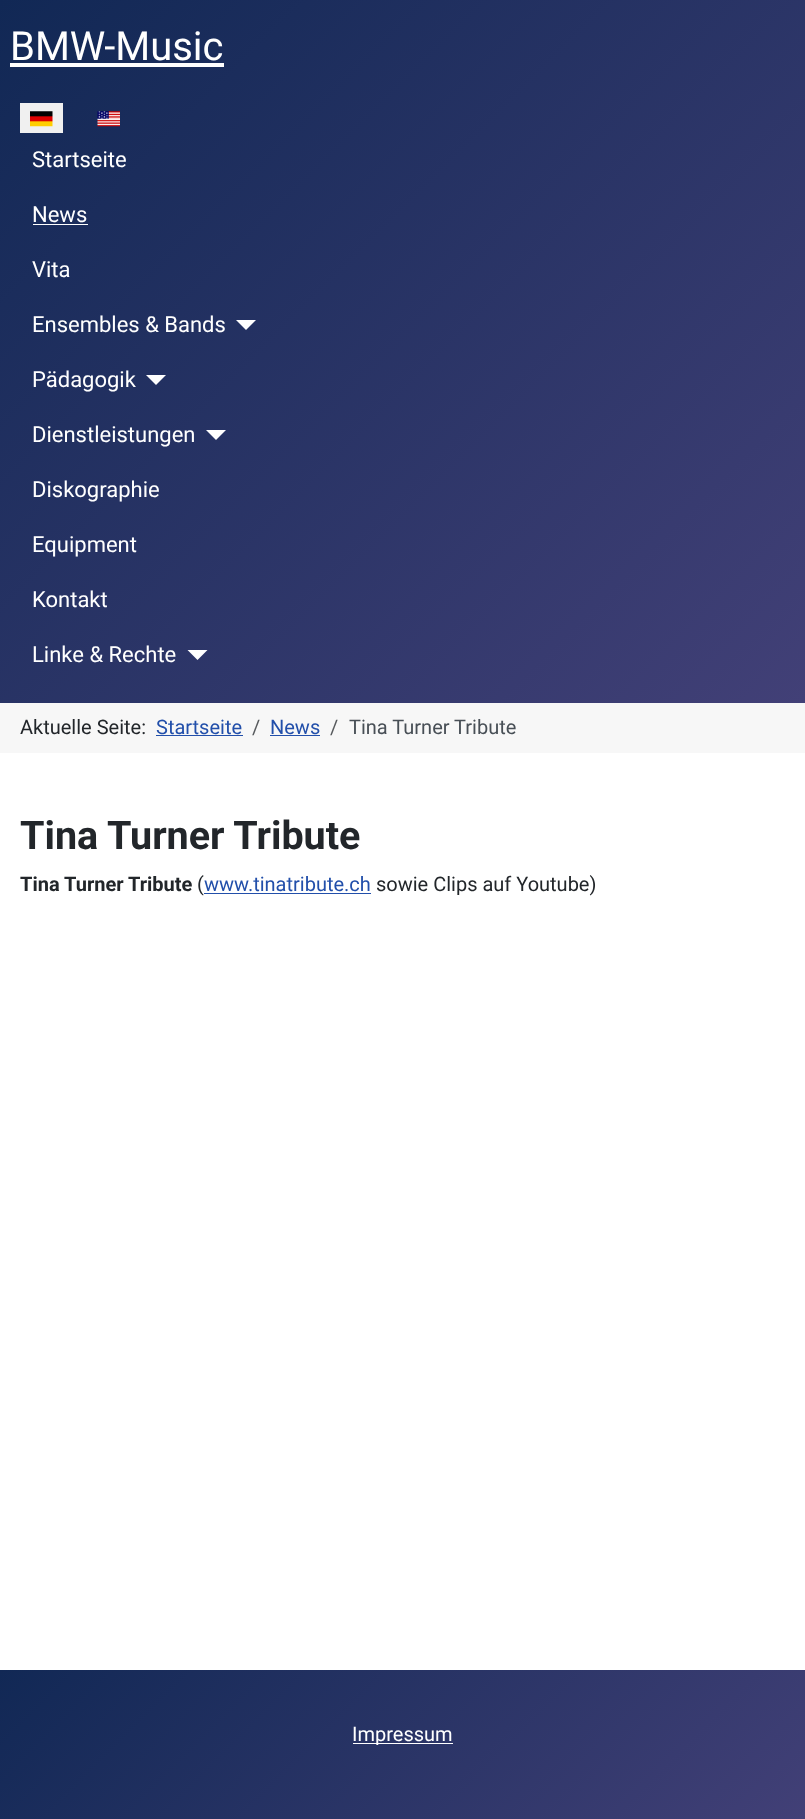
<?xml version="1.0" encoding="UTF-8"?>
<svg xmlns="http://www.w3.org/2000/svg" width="805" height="1819">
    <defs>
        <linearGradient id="g1" gradientUnits="userSpaceOnUse" x1="26" y1="-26" x2="779" y2="728"><stop offset="0" stop-color="#112855"/><stop offset="1" stop-color="#424077"/></linearGradient>
        <linearGradient id="g2" gradientUnits="userSpaceOnUse" x1="164" y1="1506" x2="641" y2="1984"><stop offset="0" stop-color="#112855"/><stop offset="1" stop-color="#424077"/></linearGradient>
    </defs>
    <rect width="100%" height="100%" fill="#FFFFFF"/>
    <rect x="0" y="0" width="805" height="703" fill="url(#g1)"/>
    <text x="10" y="60" font-family="Roboto" font-size="40" fill="#FFFFFF">BMW-Music</text>
    <rect x="10" y="63" width="214" height="4" fill="#FFFFFF"/>
    <rect x="20" y="103" width="43" height="30" fill="#F0F0F0"/>
    <image x="30" y="111" width="23" height="16" href="img_01.png"/>
    <image x="97" y="111" width="23" height="16" href="img_02.png"/>
    <text x="32" y="167" font-family="Roboto" font-size="22" fill="#FFFFFF">Startseite</text>
    <text x="32" y="222" font-family="Roboto" font-size="22" fill="#FFFFFF">News</text>
    <rect x="33" y="224" width="55" height="1" fill="#FFFFFF"/>
    <text x="32" y="277" font-family="Roboto" font-size="22" fill="#FFFFFF">Vita</text>
    <text x="32" y="332" font-family="Roboto" font-size="22" fill="#FFFFFF">Ensembles &amp; Bands</text>
    <path d="M 236 320 H 256 L 246 330 Z" fill="#FFFFFF"/>
    <text x="32" y="387" font-family="Roboto" font-size="22" fill="#FFFFFF">Pädagogik</text>
    <path d="M 146 375 H 166 L 156 385 Z" fill="#FFFFFF"/>
    <text x="32" y="442" font-family="Roboto" font-size="22" fill="#FFFFFF">Dienstleistungen</text>
    <path d="M 206 430 H 226 L 216 440 Z" fill="#FFFFFF"/>
    <text x="32" y="497" font-family="Roboto" font-size="22" fill="#FFFFFF">Diskographie</text>
    <text x="32" y="552" font-family="Roboto" font-size="22" fill="#FFFFFF">Equipment</text>
    <text x="32" y="607" font-family="Roboto" font-size="22" fill="#FFFFFF">Kontakt</text>
    <text x="32" y="662" font-family="Roboto" font-size="22" fill="#FFFFFF">Linke &amp; Rechte</text>
    <path d="M 187.5 650 H 207.5 L 197.5 660 Z" fill="#FFFFFF"/>
    <rect x="0" y="703" width="805" height="50" fill="#F7F7F7"/>
    <text x="20" y="734" font-family="Roboto" font-size="20" fill="#22262A">Aktuelle Seite:</text>
    <text x="156" y="734" font-family="Roboto" font-size="20" fill="#224FAA">Startseite</text>
    <rect x="156" y="735" width="87" height="1" fill="#224FAA"/>
    <text x="252" y="734" font-family="Roboto" font-size="20" fill="#575A5D">/</text>
    <text x="270" y="734" font-family="Roboto" font-size="20" fill="#224FAA">News</text>
    <rect x="270" y="735" width="50" height="1" fill="#224FAA"/>
    <text x="330" y="734" font-family="Roboto" font-size="20" fill="#575A5D">/</text>
    <text x="349" y="734" font-family="Roboto" font-size="20" fill="#484F56">Tina Turner Tribute</text>
    <text x="20" y="849" font-family="Roboto" font-size="39.5" font-weight="700" fill="#22262A">Tina Turner Tribute</text>
    <text x="20" y="891" font-family="Roboto" font-size="20" font-weight="700" fill="#22262A">Tina Turner Tribute</text>
    <text x="197" y="891" font-family="Roboto" font-size="20" fill="#22262A">(</text>
    <rect x="204" y="893" width="167" height="1" fill="#224FAA"/>
    <text x="204" y="891" font-family="Roboto" font-size="20" fill="#224FAA">www.tinatribute.ch</text>
    <text x="376" y="891" font-family="Roboto" font-size="20" fill="#22262A">sowie Clips auf Youtube)</text>
    <rect x="0" y="1670" width="805" height="149" fill="url(#g2)"/>
    <rect x="353" y="1743" width="100" height="1" fill="#FFFFFF"/>
    <text x="352" y="1741" font-family="Roboto" font-size="20" fill="#FFFFFF">Impressum</text>
</svg>
